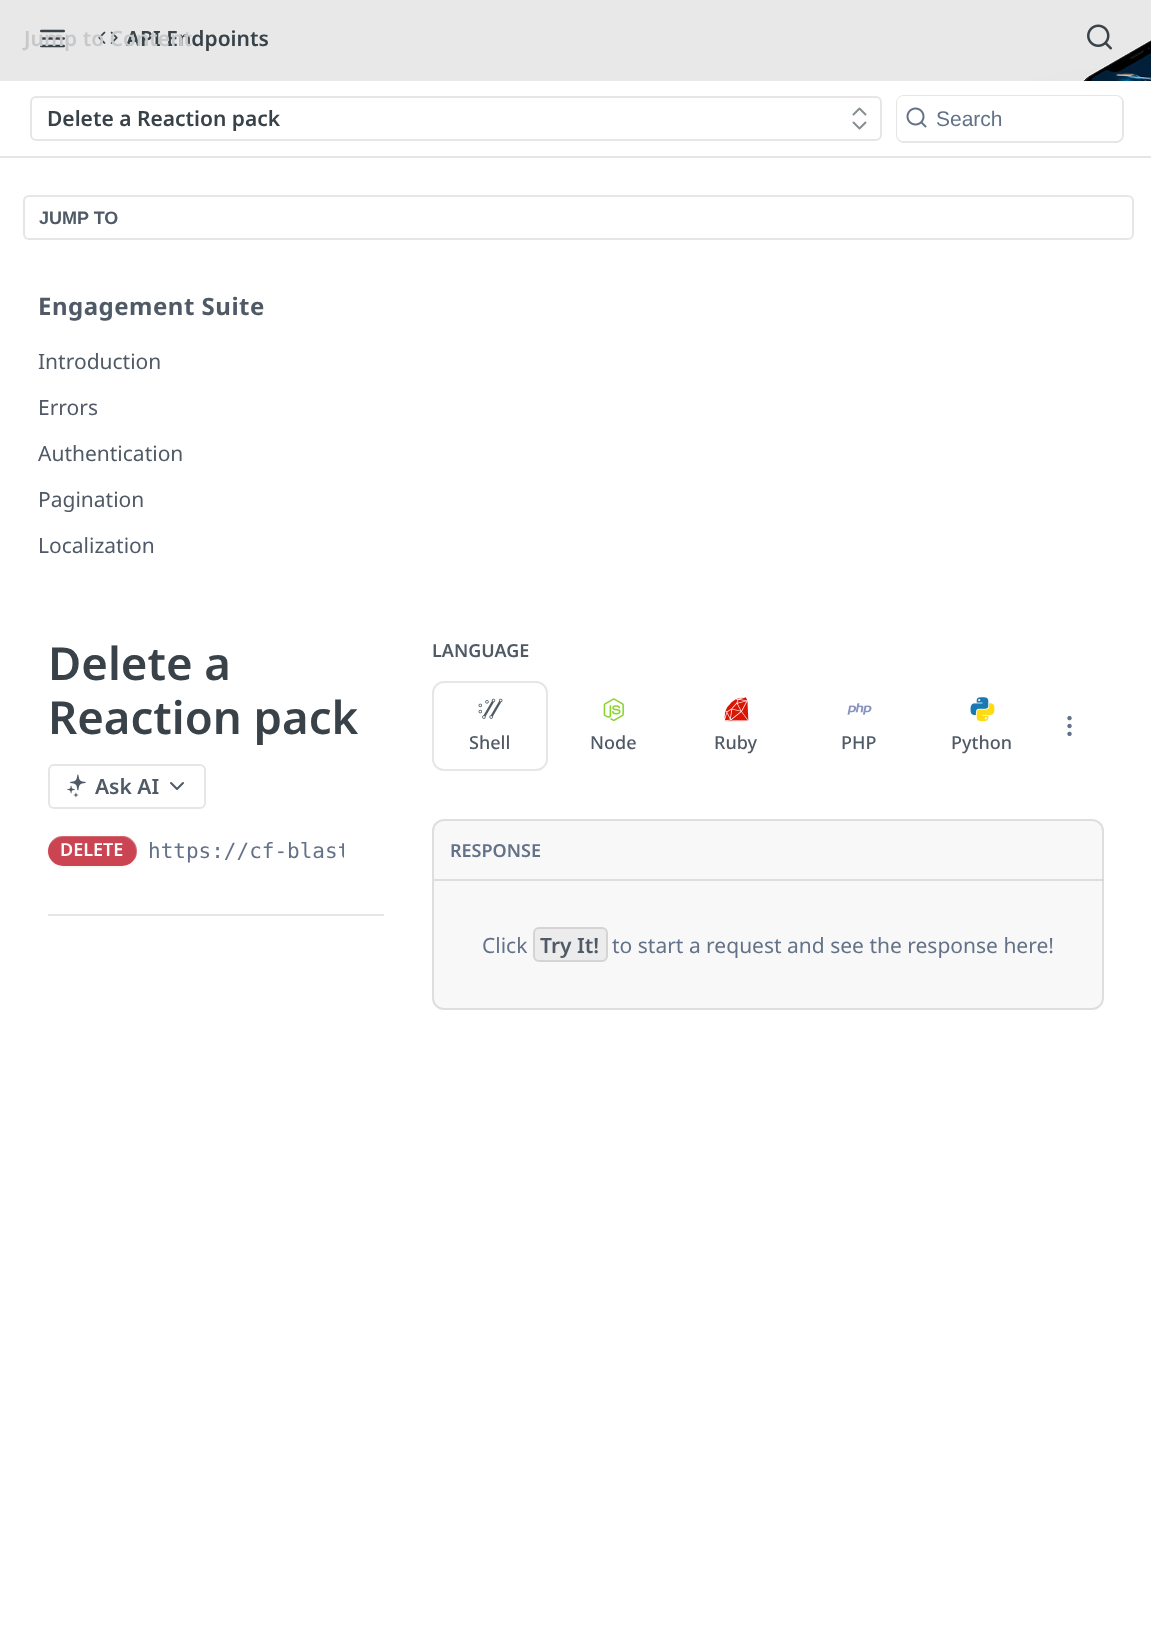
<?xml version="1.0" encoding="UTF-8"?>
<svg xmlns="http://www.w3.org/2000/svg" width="1151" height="1642">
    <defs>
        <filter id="blur1" x="-50%" y="-200%" width="200%" height="500%"><feGaussianBlur stdDeviation="1.5"/></filter>
        <clipPath id="clip1"><rect x="149" y="836" width="195" height="30"/></clipPath>
    </defs>
    <rect width="100%" height="100%" fill="#FFFFFF"/>
    <rect x="0" y="156" width="1151" height="2" fill="#E6E6E6"/>
    <image x="0" y="0" width="1151" height="81" href="img_01.png"/>
    <image x="40" y="29" width="25" height="19" href="img_02.png"/>
    <image x="98" y="31" width="20" height="13" href="img_03.png"/>
    <text x="126" y="46" font-family="Noto Sans" font-size="21" font-weight="600" fill="#384248">API Endpoints</text>
    <text x="24" y="46" font-family="Noto Sans" font-size="21" font-weight="600" fill="#C6C8C9">Jump to Content</text>
    <image x="1087" y="24" width="25" height="26" href="img_04.png"/>
    <rect x="31" y="97" width="850" height="43" rx="5" fill="none" stroke="#E6E6E6" stroke-width="2"/>
    <text x="47" y="126" font-family="Noto Sans" font-size="21" font-weight="600" fill="#384248">Delete a Reaction pack</text>
    <path d="M 853.5 122.5 L 859.5 128.5 L 865.5 122.5 M 865.5 114.5 L 859.5 108.5 L 853.5 114.5" fill="none" stroke="#888E91" stroke-width="2" stroke-linecap="round" stroke-linejoin="round"/>
    <rect x="897" y="96" width="226" height="46" rx="7" fill="none" stroke="#E6E6E6" stroke-width="2"/>
    <rect x="897" y="96" width="225" height="45" rx="6" fill="#FFFFFF"/>
    <image x="906" y="107" width="21" height="21" href="img_05.png"/>
    <text x="936" y="126" font-family="Liberation Sans" font-size="21" fill="#637288">Search</text>
    <rect x="24" y="196" width="1109" height="43" rx="5" fill="none" stroke="#E6E6E6" stroke-width="2"/>
    <text x="39" y="224" font-family="Liberation Sans" font-size="18" font-weight="700" fill="#4F5A66">JUMP TO</text>
    <text x="38" y="315" font-family="Noto Sans" font-size="24" font-weight="700" letter-spacing="0.5" fill="#4F5A66">Engagement Suite</text>
    <text x="38" y="369" font-family="Noto Sans" font-size="21" fill="#4F5A66">Introduction</text>
    <text x="38" y="415" font-family="Noto Sans" font-size="21" fill="#4F5A66">Errors</text>
    <text x="38" y="461" font-family="Noto Sans" font-size="21" fill="#4F5A66">Authentication</text>
    <text x="38" y="507" font-family="Noto Sans" font-size="21" fill="#4F5A66">Pagination</text>
    <text x="38" y="553" font-family="Noto Sans" font-size="21" fill="#4F5A66">Localization</text>
    <rect x="48" y="914" width="336" height="2" fill="#E6E6E6"/>
    <text font-family="Noto Sans" font-size="45.5" font-weight="600" fill="#384248">
        <tspan x="48" y="680">Delete a</tspan>
        <tspan x="48" y="734">Reaction pack</tspan>
    </text>
    <rect x="49" y="765" width="156" height="43" rx="5" fill="none" stroke="#E6E6E6" stroke-width="2"/>
    <image x="67" y="774" width="19" height="24" href="img_06.png"/>
    <text x="95" y="794" font-family="Noto Sans" font-size="21" font-weight="600" fill="#4F5A66">Ask AI</text>
    <path d="M 171 783 L 177 789 L 183 783" fill="none" stroke="#4F5A66" stroke-width="2" stroke-linecap="round" stroke-linejoin="round"/>
    <rect x="48" y="837" width="89" height="30" rx="15" fill="#000000" fill-opacity="0.05" filter="url(#blur1)"/>
    <rect x="48" y="836" width="89" height="30" rx="15" fill="#CB4452"/>
    <path d="M 63 837 H 122 C 130 837 136 844 136 852 C 136 855 135 858 133 861 C 136 857 138 853 137 848 C 134 835 122 836 112 836 H 60 C 53 838 48 844 48 852 C 48 844 55 837 63 837 Z" fill="#FFFFFF" fill-opacity="0.2"/>
    <text x="60" y="856" font-family="Noto Sans" font-size="18" font-weight="600" fill="#FFFFFF">DELETE</text>
    <g clip-path="url(#clip1)">
        <text x="148" y="858" font-family="DejaVu Sans Mono" font-size="21" fill="#637288">https://cf-blast</text>
    </g>
    <text x="432" y="657" font-family="Noto Sans" font-size="18" font-weight="600" fill="#4F5A66">LANGUAGE</text>
    <image x="1067" y="715" width="5" height="22" href="img_07.png"/>
    <rect x="433" y="682" width="114" height="88" rx="11" fill="none" stroke="#E6E6E6" stroke-width="2"/>
    <image x="478" y="698" width="25" height="21" href="img_08.png"/>
    <text x="469" y="749" font-family="Noto Sans" font-size="18" font-weight="500" fill="#4F5A66">Shell</text>
    <image x="603" y="698" width="21" height="24" href="img_09.png"/>
    <text x="590" y="749" font-family="Noto Sans" font-size="18" font-weight="500" fill="#4F5A66">Node</text>
    <image x="724" y="697" width="25" height="25" href="img_10.png"/>
    <text x="714" y="749" font-family="Noto Sans" font-size="18" font-weight="500" fill="#4F5A66">Ruby</text>
    <image x="847" y="703" width="25" height="12" href="img_11.png"/>
    <text x="841" y="749" font-family="Noto Sans" font-size="18" font-weight="500" fill="#4F5A66">PHP</text>
    <image x="970" y="697" width="19" height="19" href="img_12.png"/>
    <image x="976" y="703" width="19" height="19" href="img_13.png"/>
    <text x="951" y="749" font-family="Noto Sans" font-size="18" font-weight="500" fill="#4F5A66">Python</text>
    <rect x="432" y="819" width="672" height="191" rx="12" fill="#F8F8F8"/>
    <rect x="433" y="820" width="670" height="189" rx="11" fill="none" stroke="#000000" stroke-opacity="0.1" stroke-width="2"/>
    <rect x="434" y="879" width="669" height="2" fill="#000000" fill-opacity="0.1"/>
    <text x="450" y="857" font-family="Noto Sans" font-size="18" font-weight="600" fill="#637288">RESPONSE</text>
    <text x="482" y="953" font-family="Noto Sans" font-size="21" fill="#637288">Click</text>
    <rect x="533" y="927" width="75" height="35" rx="6" fill="#ECECEC"/>
    <rect x="534" y="928" width="73" height="33" rx="5" fill="none" stroke="#000000" stroke-opacity="0.1" stroke-width="2"/>
    <text x="540" y="953" font-family="Noto Sans" font-size="21" font-weight="600" fill="#4F5A66">Try It!</text>
    <text x="612" y="953" font-family="Noto Sans" font-size="21" fill="#637288">to start a request and see the response here!</text>
</svg>
